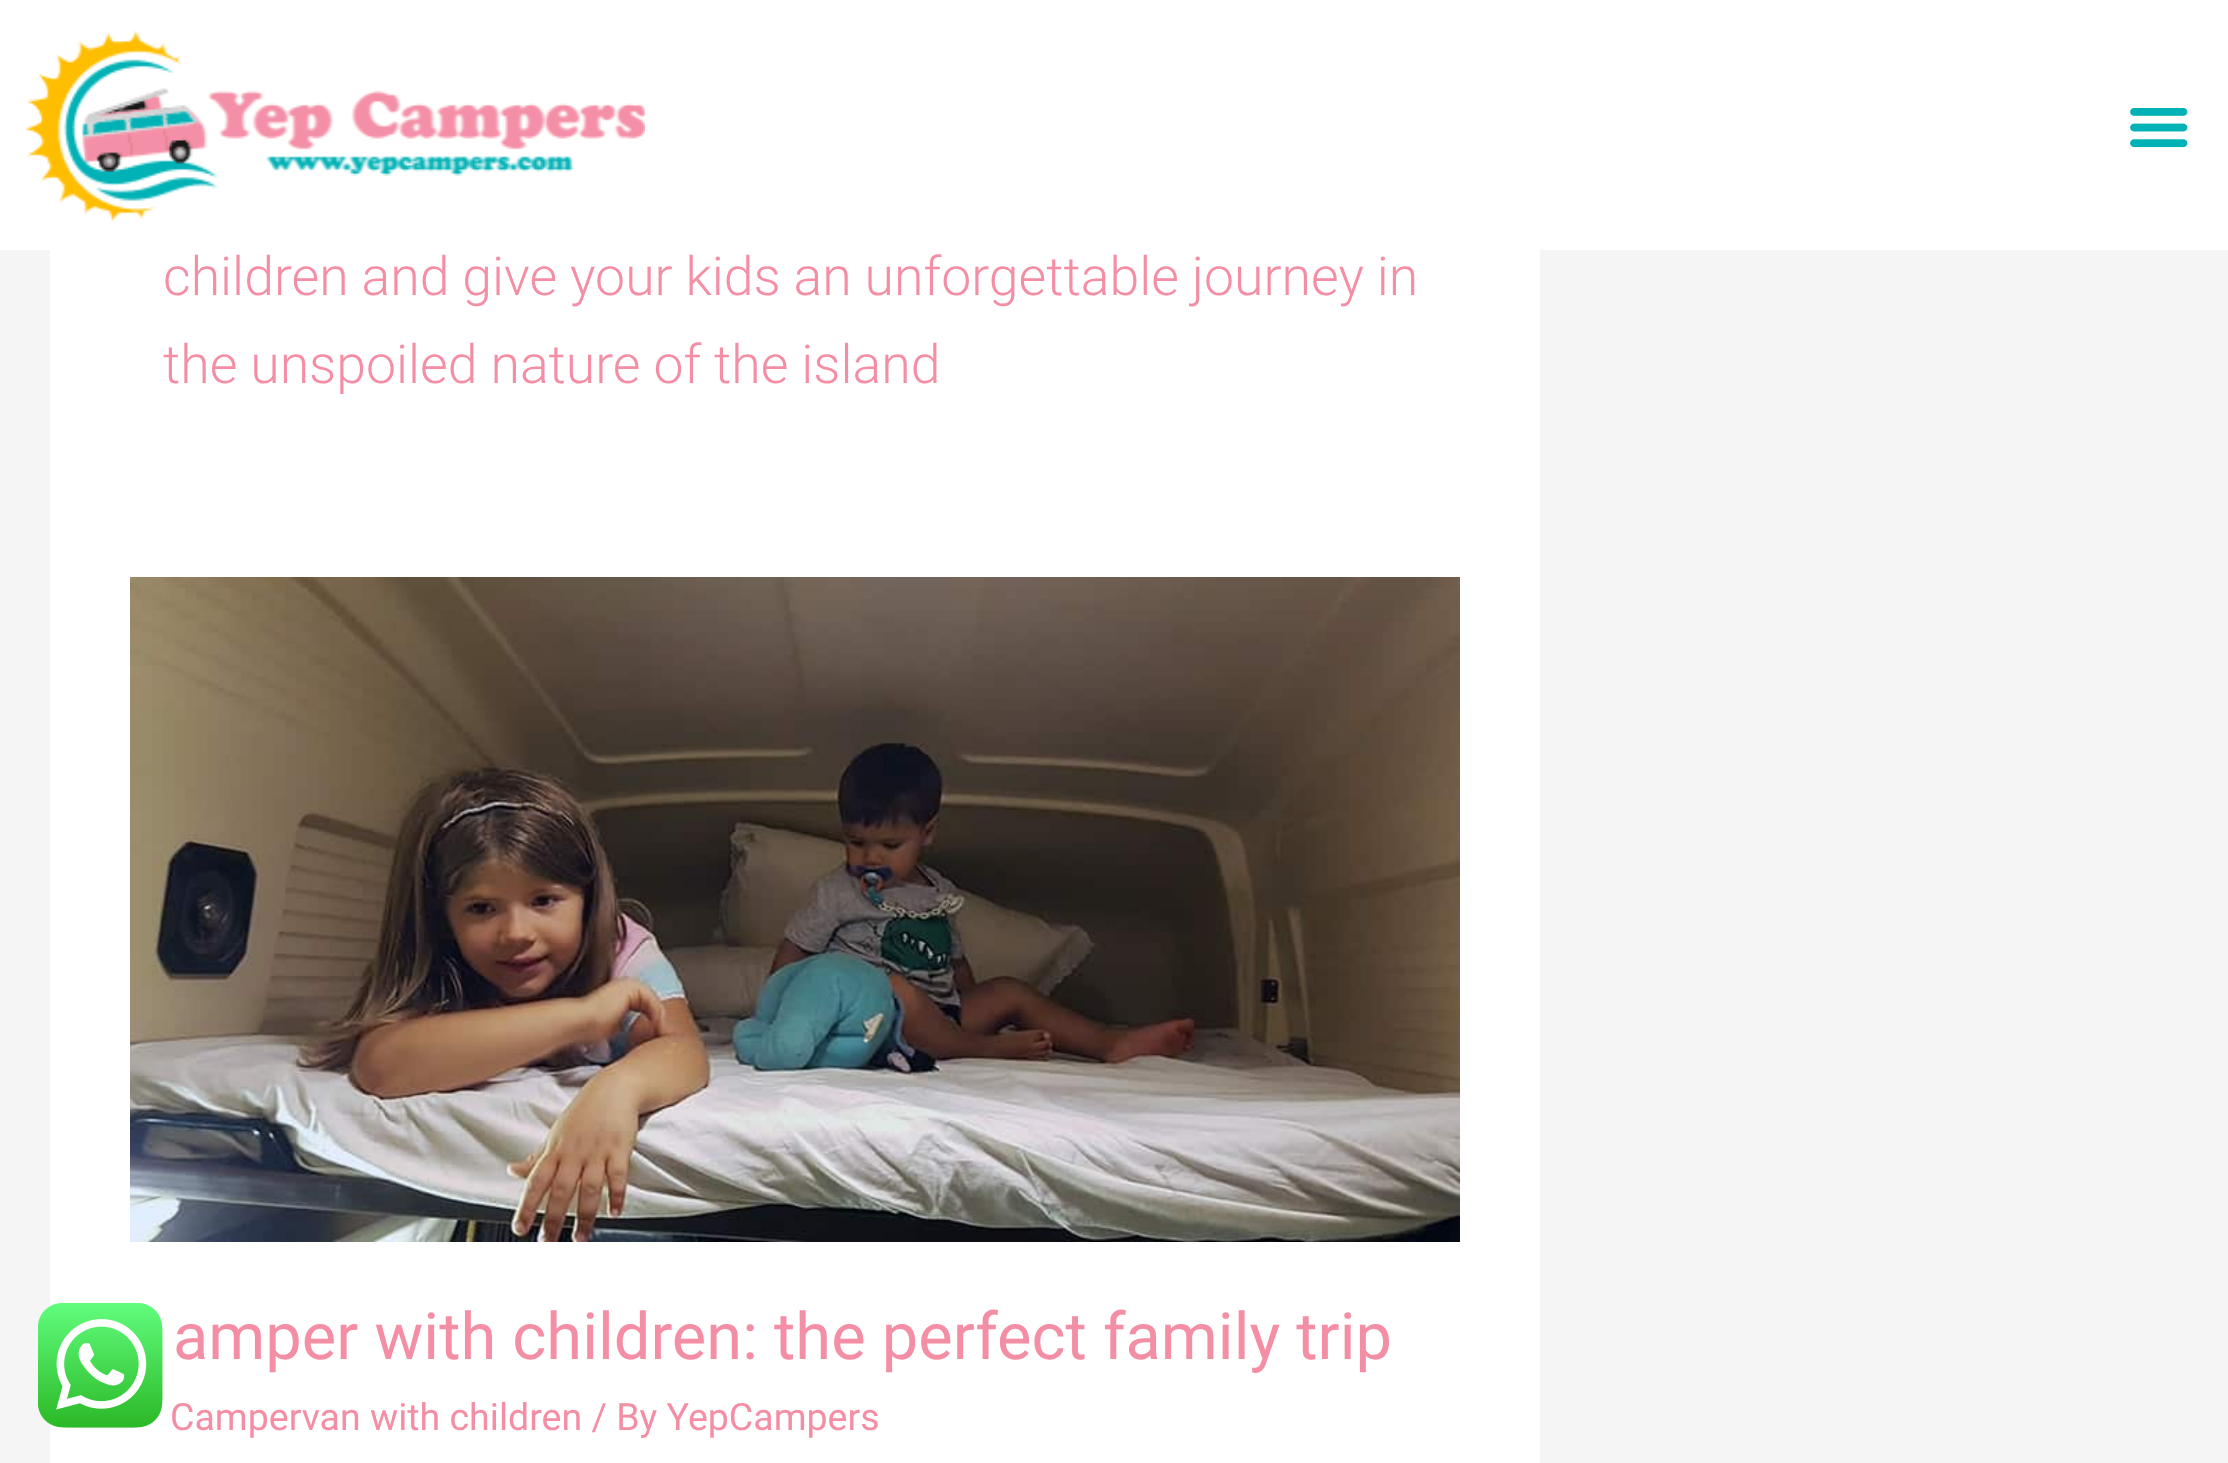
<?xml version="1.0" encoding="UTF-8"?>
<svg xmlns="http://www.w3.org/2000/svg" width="2228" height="1463">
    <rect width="100%" height="100%" fill="#F5F5F5"/>
    <rect x="50" y="250" width="1490" height="1213" fill="#FFFFFF"/>
    <image x="38" y="1303" width="125" height="125" href="img_01.png"/>
    <rect x="0" y="0" width="2228" height="250" fill="#FFFFFF"/>
    <image x="25" y="30" width="620" height="192" href="img_02.png"/>
    <image x="2130" y="108" width="58" height="40" href="img_03.png"/>
    <text font-family="Roboto" font-size="53.6" font-weight="300" fill="#F48EA5">
        <tspan x="163" y="295" word-spacing="-0.25">children and give your kids an unforgettable journey in</tspan>
        <tspan x="163" y="383" word-spacing="-0.25">the unspoiled nature of the island</tspan>
    </text>
    <image x="130" y="577" width="1330" height="665" href="img_04.png"/>
    <text x="173" y="1359" font-family="Roboto" font-size="65" fill="#F48EA5">amper with children: the perfect family trip</text>
    <text x="170" y="1430" font-family="Roboto" font-size="37.5" fill="#F48EA5">Campervan with children / By YepCampers</text>
</svg>
